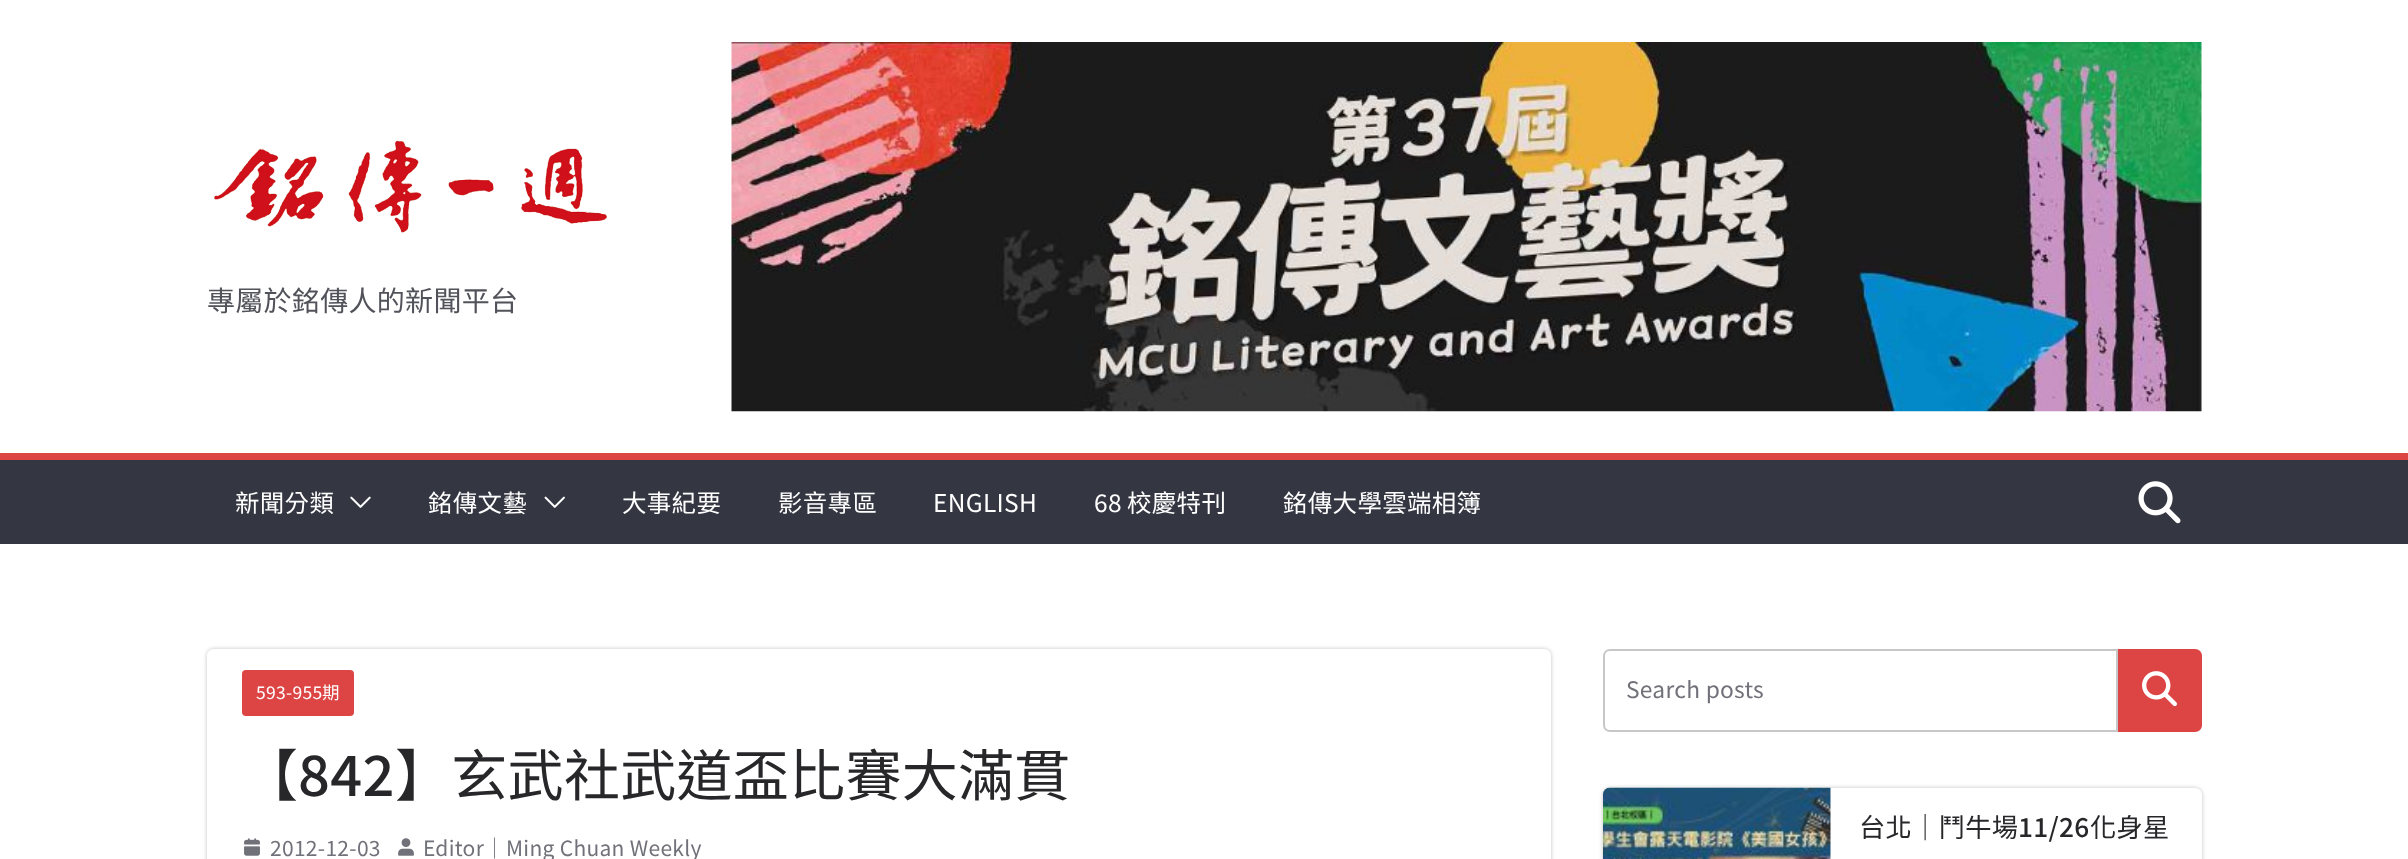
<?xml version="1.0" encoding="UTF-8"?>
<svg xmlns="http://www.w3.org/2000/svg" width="2408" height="859">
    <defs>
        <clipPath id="clip1"><path d="M 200 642 H 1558 V 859 H 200 Z M 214 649 H 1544 C 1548 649 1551 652 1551 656 V 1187 C 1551 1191 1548 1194 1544 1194 H 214 C 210 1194 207 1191 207 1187 V 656 C 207 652 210 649 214 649 Z" clip-rule="evenodd"/></clipPath>
        <filter id="blur1" x="-50%" y="-200%" width="200%" height="500%"><feGaussianBlur stdDeviation="2"/></filter>
        <clipPath id="clip2"><path d="M 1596 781 H 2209 V 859 H 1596 Z M 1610 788 H 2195 C 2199 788 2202 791 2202 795 V 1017 C 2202 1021 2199 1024 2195 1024 H 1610 C 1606 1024 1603 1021 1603 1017 V 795 C 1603 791 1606 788 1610 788 Z" clip-rule="evenodd"/></clipPath>
    </defs>
    <rect width="100%" height="100%" fill="#FFFFFF"/>
    <image x="214" y="140" width="394" height="93" href="img_01.png"/>
    <text x="207" y="311" font-family="Noto Sans CJK TC" font-size="28" letter-spacing="0.3" fill="#52525B">專屬於銘傳人的新聞平台</text>
    <image x="731" y="42" width="1471" height="370" href="img_02.png"/>
    <rect x="0" y="460" width="2408" height="84" fill="#343642"/>
    <rect x="0" y="453" width="2408" height="7" fill="#DD4444"/>
    <text x="235" y="512" font-family="'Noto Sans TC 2'" font-size="24.5" letter-spacing="0.3" fill="#FFFFFF">新聞分類</text>
    <image x="350" y="496" width="21" height="12" href="img_03.png"/>
    <text x="428" y="512" font-family="'Noto Sans TC 2'" font-size="24.5" letter-spacing="0.3" fill="#FFFFFF">銘傳文藝</text>
    <image x="544" y="496" width="21" height="12" href="img_04.png"/>
    <text x="622" y="512" font-family="Noto Sans CJK TC" font-size="24.5" letter-spacing="0.3" fill="#FFFFFF">大事紀要</text>
    <text x="778" y="512" font-family="'Noto Sans TC 2'" font-size="24.5" letter-spacing="0.3" fill="#FFFFFF">影音專區</text>
    <text x="933" y="512" font-family="Noto Sans TC" font-size="24.5" letter-spacing="0.3" fill="#FFFFFF">ENGLISH</text>
    <text x="1094" y="512" font-family="Noto Sans TC" font-size="24.5" letter-spacing="0.3" fill="#FFFFFF">68</text>
    <text x="1127" y="512" font-family="Noto Sans CJK TC" font-size="24.5" letter-spacing="0.3" fill="#FFFFFF">校慶特刊</text>
    <text x="1283" y="512" font-family="Noto Sans CJK TC" font-size="24.5" letter-spacing="0.3" fill="#FFFFFF">銘傳大學雲端相簿</text>
    <image x="2138" y="481" width="43" height="43" href="img_05.png"/>
    <g clip-path="url(#clip1)">
        <rect x="207" y="649" width="1344" height="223" rx="7" fill="#000000" fill-opacity="0.24" filter="url(#blur1)"/>
    </g>
    <rect x="242" y="670" width="112" height="46" rx="4" fill="#DD4444"/>
    <text x="256" y="699" font-family="Noto Sans TC" font-size="17.5" letter-spacing="0.3" fill="#FFFFFF">593-955</text>
    <text x="322" y="699" font-family="'Noto Sans TC 2'" font-size="17.5" letter-spacing="0.3" fill="#FFFFFF">期</text>
    <text x="242" y="796" font-family="Noto Sans CJK TC" font-size="56" letter-spacing="0.3" fill="#27272A">【</text>
    <text x="298" y="796" font-family="Noto Sans TC" font-size="56" font-weight="500" letter-spacing="0.3" fill="#27272A">842</text>
    <text x="395" y="796" font-family="Noto Sans CJK TC" font-size="56" letter-spacing="0.3" fill="#27272A">】玄武社武道盃比賽大滿貫</text>
    <image x="244" y="838" width="16" height="18" href="img_06.png"/>
    <text x="270" y="856" font-family="Noto Sans TC" font-size="21" letter-spacing="0.3" fill="#71717A">2012-12-03</text>
    <image x="398" y="838" width="16" height="18" href="img_07.png"/>
    <text x="423" y="856" font-family="Noto Sans TC" font-size="21" letter-spacing="0.3" fill="#71717A">Editor</text>
    <text x="484" y="856" font-family="Noto Sans CJK TC" font-size="21" letter-spacing="0.3" fill="#71717A">｜</text>
    <text x="506" y="856" font-family="Noto Sans TC" font-size="21" letter-spacing="0.3" fill="#71717A">Ming Chuan Weekly</text>
    <path d="M 1610 650 H 2117 V 731 H 1610 C 1606.5 731 1604 728.5 1604 725 V 656 C 1604 652.5 1606.5 650 1610 650 Z" fill="none" stroke="#C7C7C7" stroke-width="2"/>
    <text x="1626" y="698" font-family="Noto Sans TC" font-size="22.75" letter-spacing="0.3" fill="#71717A">Search posts</text>
    <path d="M 2118 649 H 2195 C 2199 649 2202 652 2202 656 V 725 C 2202 729 2199 732 2195 732 H 2118 Z" fill="#DD4444"/>
    <image x="2142" y="671" width="35" height="36" href="img_08.png"/>
    <g clip-path="url(#clip2)">
        <rect x="1603" y="788" width="599" height="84" rx="7" fill="#000000" fill-opacity="0.24" filter="url(#blur1)"/>
    </g>
    <image x="1603" y="787" width="228" height="72" href="img_09.png"/>
    <text x="1859" y="837" font-family="Noto Sans CJK TC" font-size="26.25" letter-spacing="0.3" fill="#27272A">台北｜鬥牛場</text>
    <text x="2018" y="837" font-family="Noto Sans TC" font-size="26.25" font-weight="500" letter-spacing="0.3" fill="#27272A">11/26</text>
    <text x="2090" y="837" font-family="Noto Sans CJK TC" font-size="26.25" letter-spacing="0.3" fill="#27272A">化身星</text>
</svg>
